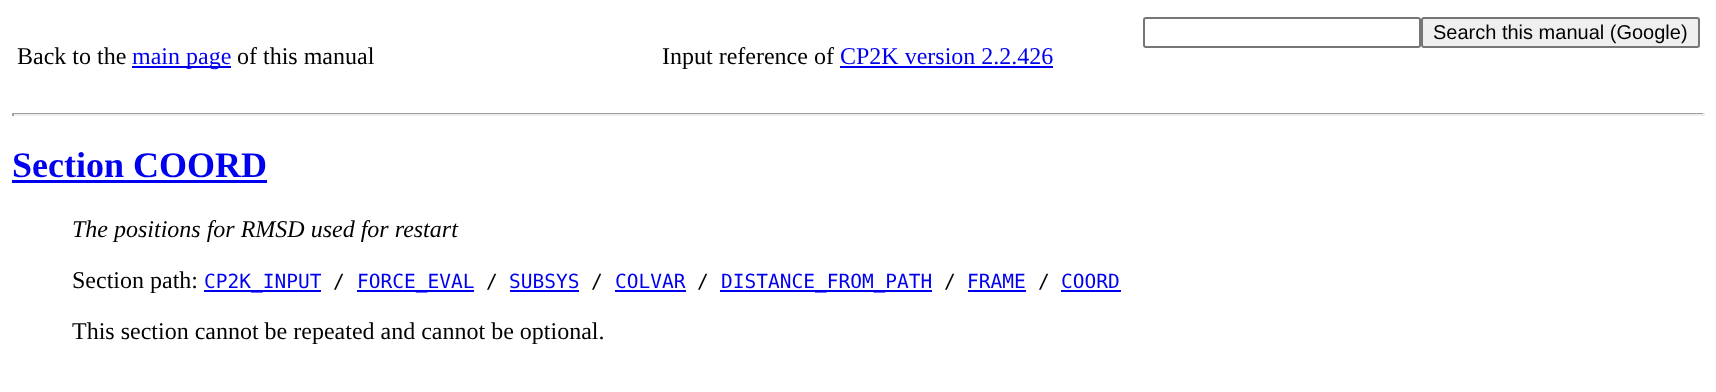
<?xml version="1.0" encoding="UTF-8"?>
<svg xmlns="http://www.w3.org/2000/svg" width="1716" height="392">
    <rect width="100%" height="100%" fill="#FFFFFF"/>
    <rect x="1144" y="18" width="276" height="29" rx="2" fill="none" stroke="#767676" stroke-width="2"/>
    <rect x="1422" y="18" width="277" height="29" rx="2" fill="#EFEFEF" stroke="#767676" stroke-width="2"/>
    <text x="1433" y="39" font-family="Liberation Sans" font-size="20" fill="#000000">Search this manual (Google)</text>
    <text x="17" y="64" font-family="Liberation Serif" font-size="24" fill="#000000">Back to the</text>
    <rect x="132" y="66" width="99" height="2" fill="#0000EE"/>
    <text x="132" y="64" font-family="Liberation Serif" font-size="24" fill="#0000EE">main page</text>
    <text x="237" y="64" font-family="Liberation Serif" font-size="24" fill="#000000">of this manual</text>
    <text x="662" y="64" font-family="Liberation Serif" font-size="24" fill="#000000">Input reference of</text>
    <text x="840" y="64" font-family="Liberation Serif" font-size="24" fill="#0000EE">CP2K version 2.2.426</text>
    <rect x="840" y="66" width="213" height="2" fill="#0000EE"/>
    <rect x="12" y="113" width="1692" height="1" fill="#9F9F9F"/>
    <rect x="1703" y="113" width="2" height="3" fill="#EEEEEE"/>
    <rect x="12" y="114" width="1692" height="2" fill="#EEEEEE"/>
    <rect x="12" y="113" width="2" height="3" fill="#9F9F9F"/>
    <text x="12" y="177" font-family="Liberation Serif" font-size="36" font-weight="700" fill="#0000EE">Section COORD</text>
    <rect x="12" y="180" width="255" height="3" fill="#0000EE"/>
    <text x="72" y="237" font-family="Liberation Serif" font-size="24" font-style="italic" fill="#000000">The positions for RMSD used for restart</text>
    <text x="72" y="288" font-family="Liberation Serif" font-size="24" fill="#000000">Section path:</text>
    <rect x="204" y="290" width="117" height="2" fill="#0000EE"/>
    <text x="204" y="288" font-family="DejaVu Sans Mono" font-size="19.5" fill="#0000EE">CP2K_INPUT</text>
    <text x="333" y="288" font-family="DejaVu Sans Mono" font-size="19.5" fill="#000000">/</text>
    <rect x="357" y="290" width="117" height="2" fill="#0000EE"/>
    <text x="357" y="288" font-family="DejaVu Sans Mono" font-size="19.5" fill="#0000EE">FORCE_EVAL</text>
    <text x="486" y="288" font-family="DejaVu Sans Mono" font-size="19.5" fill="#000000">/</text>
    <text x="509" y="288" font-family="DejaVu Sans Mono" font-size="19.5" fill="#0000EE">SUBSYS</text>
    <rect x="510" y="290" width="69" height="2" fill="#0000EE"/>
    <text x="591" y="288" font-family="DejaVu Sans Mono" font-size="19.5" fill="#000000">/</text>
    <text x="615" y="288" font-family="DejaVu Sans Mono" font-size="19.5" fill="#0000EE">COLVAR</text>
    <rect x="615" y="290" width="71" height="2" fill="#0000EE"/>
    <text x="697" y="288" font-family="DejaVu Sans Mono" font-size="19.5" fill="#000000">/</text>
    <rect x="720" y="290" width="212" height="2" fill="#0000EE"/>
    <text x="721" y="288" font-family="DejaVu Sans Mono" font-size="19.5" fill="#0000EE">DISTANCE_FROM_PATH</text>
    <text x="944" y="288" font-family="DejaVu Sans Mono" font-size="19.5" fill="#000000">/</text>
    <text x="967" y="288" font-family="DejaVu Sans Mono" font-size="19.5" fill="#0000EE">FRAME</text>
    <rect x="968" y="290" width="58" height="2" fill="#0000EE"/>
    <text x="1038" y="288" font-family="DejaVu Sans Mono" font-size="19.5" fill="#000000">/</text>
    <text x="1061" y="288" font-family="DejaVu Sans Mono" font-size="19.5" fill="#0000EE">COORD</text>
    <rect x="1061" y="290" width="60" height="2" fill="#0000EE"/>
    <text x="72" y="339" font-family="Liberation Serif" font-size="24" fill="#000000">This section cannot be repeated and cannot be optional.</text>
</svg>
